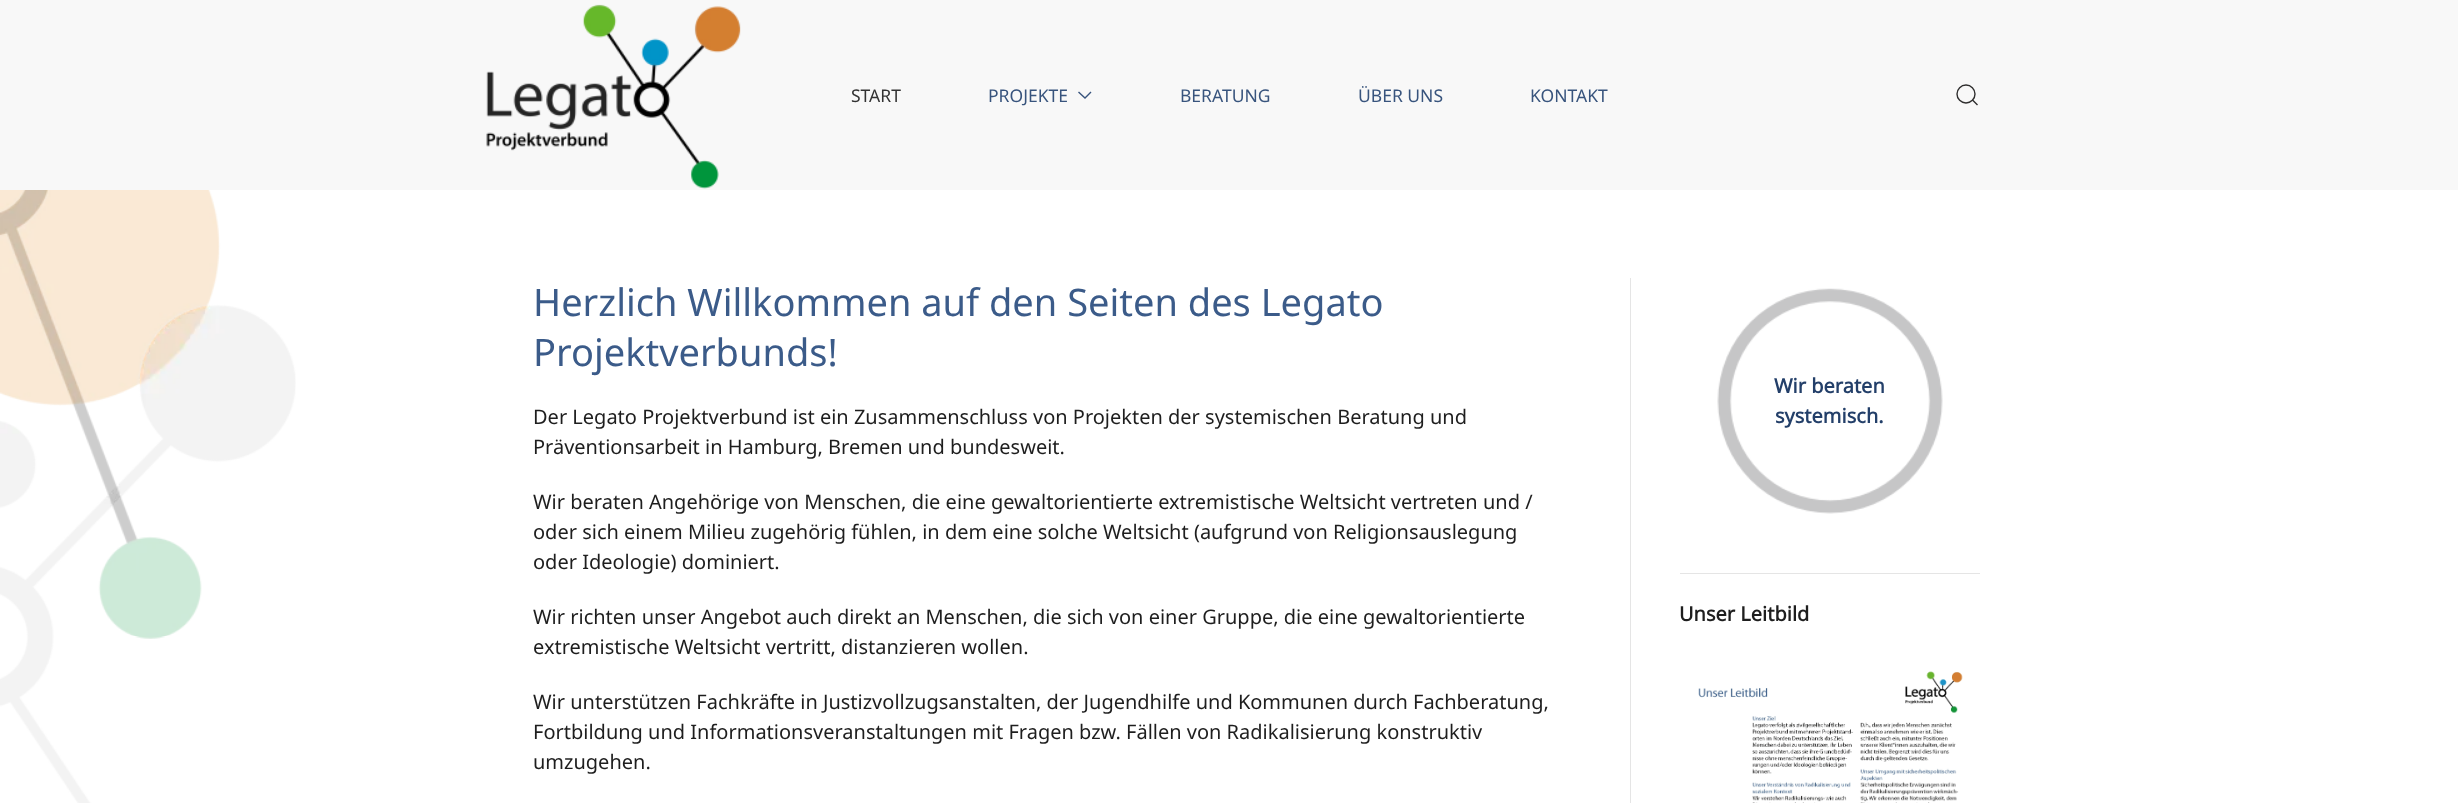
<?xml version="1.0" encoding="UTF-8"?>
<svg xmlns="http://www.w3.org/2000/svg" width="2458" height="803">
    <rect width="100%" height="100%" fill="#FFFFFF"/>
    <rect x="0" y="0" width="2458" height="190" fill="#F8F8F8"/>
    <image x="486" y="4" width="255" height="185" href="img_01.png"/>
    <text x="851" y="102" font-family="Noto Sans" font-size="17.5" fill="#333333">START</text>
    <text x="988" y="102" font-family="Noto Sans" font-size="17.5" fill="#38547D">PROJEKTE</text>
    <path d="M 1078.5 92 L 1085 98 L 1091 92" fill="none" stroke="#38547D" stroke-width="1.4"/>
    <text x="1180" y="102" font-family="Noto Sans" font-size="17.5" fill="#38547D">BERATUNG</text>
    <text x="1358" y="102" font-family="Noto Sans" font-size="17.5" fill="#38547D">ÜBER UNS</text>
    <text x="1530" y="102" font-family="Noto Sans" font-size="17.5" fill="#38547D">KONTAKT</text>
    <circle cx="1966" cy="94" r="9" fill="none" stroke="#2F2E2E" stroke-width="1.4"/>
    <path d="M 1972.5 100 L 1977.5 105 Z" fill="none" stroke="#2F2E2E" stroke-width="1.4"/>
    <image x="0" y="190" width="296" height="613" href="img_02.png"/>
    <text font-family="Noto Sans" font-size="38" fill="#3B5B89">
        <tspan x="533" y="316">Herzlich Willkommen auf den Seiten des Legato</tspan>
        <tspan x="533" y="366">Projektverbunds!</tspan>
    </text>
    <text font-family="Noto Sans" font-size="20" fill="#1E1E1E">
        <tspan x="533" y="424">Der Legato Projektverbund ist ein Zusammenschluss von Projekten der systemischen Beratung und</tspan>
        <tspan x="533" y="454">Präventionsarbeit in Hamburg, Bremen und bundesweit.</tspan>
    </text>
    <text font-family="Noto Sans" font-size="20" fill="#1E1E1E">
        <tspan x="533" y="509">Wir beraten Angehörige von Menschen, die eine gewaltorientierte extremistische Weltsicht vertreten und /</tspan>
        <tspan x="533" y="539">oder sich einem Milieu zugehörig fühlen, in dem eine solche Weltsicht (aufgrund von Religionsauslegung</tspan>
        <tspan x="533" y="569">oder Ideologie) dominiert.</tspan>
    </text>
    <text font-family="Noto Sans" font-size="20" fill="#1E1E1E">
        <tspan x="533" y="624">Wir richten unser Angebot auch direkt an Menschen, die sich von einer Gruppe, die eine gewaltorientierte</tspan>
        <tspan x="533" y="654">extremistische Weltsicht vertritt, distanzieren wollen.</tspan>
    </text>
    <text font-family="Noto Sans" font-size="20" fill="#1E1E1E">
        <tspan x="533" y="709">Wir unterstützen Fachkräfte in Justizvollzugsanstalten, der Jugendhilfe und Kommunen durch Fachberatung,</tspan>
        <tspan x="533" y="739">Fortbildung und Informationsveranstaltungen mit Fragen bzw. Fällen von Radikalisierung konstruktiv</tspan>
        <tspan x="533" y="769">umzugehen.</tspan>
    </text>
    <rect x="1630" y="278" width="1" height="525" fill="#E5E5E5"/>
    <image x="1717" y="288" width="226" height="226" href="img_03.png"/>
    <text x="1774" y="393" font-family="Noto Sans" font-size="20" font-weight="700" fill="#233F69">Wir beraten</text>
    <text x="1775" y="423" font-family="Noto Sans" font-size="20" font-weight="700" fill="#233F69">systemisch.</text>
    <rect x="1680" y="573" width="300" height="1" fill="#E5E5E5"/>
    <text x="1679" y="621" font-family="Noto Sans" font-size="20" font-weight="700" fill="#1E1E1E">Unser Leitbild</text>
    <image x="1698" y="671" width="265" height="132" href="img_04.png"/>
</svg>
